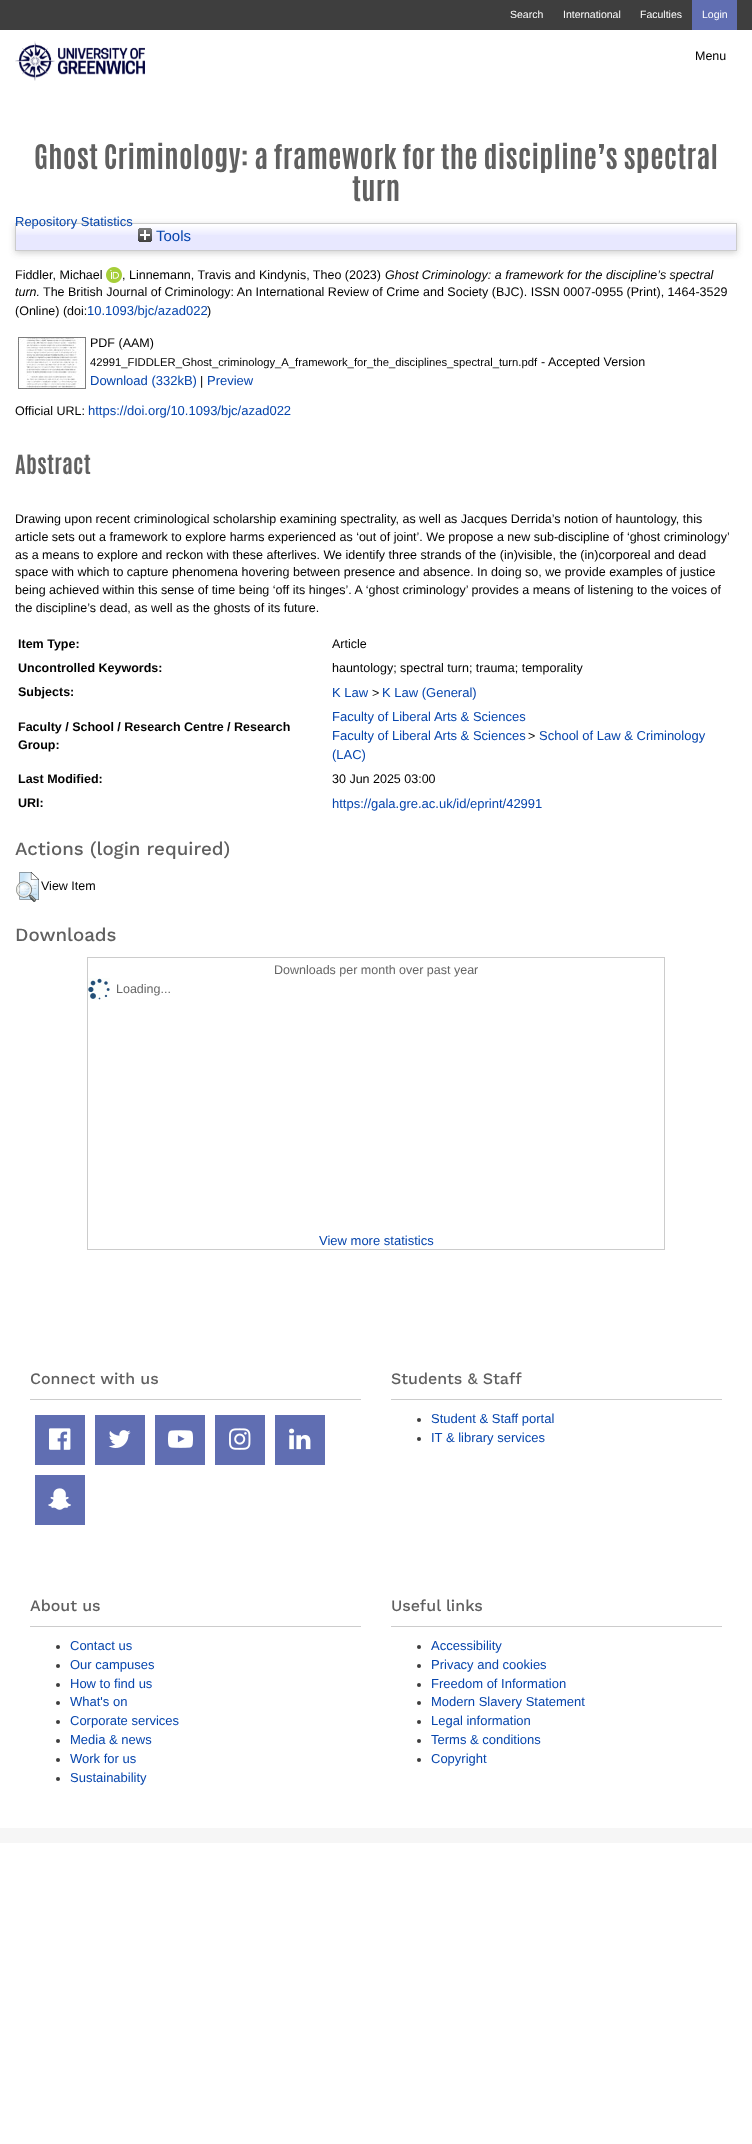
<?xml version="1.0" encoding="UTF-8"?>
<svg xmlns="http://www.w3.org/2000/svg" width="752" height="2144">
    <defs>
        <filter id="blur1" x="-50%" y="-200%" width="200%" height="500%"><feGaussianBlur stdDeviation="3"/></filter>
    </defs>
    <rect width="100%" height="100%" fill="#FFFFFF"/>
    <rect x="0" y="0" width="752" height="30" fill="#3E3E3E"/>
    <text x="510" y="18" font-family="Liberation Sans" font-size="10.5" fill="#FFFFFF">Search</text>
    <text x="563" y="18" font-family="Liberation Sans" font-size="10.5" fill="#FFFFFF">International</text>
    <text x="640" y="18" font-family="Liberation Sans" font-size="10.5" fill="#FFFFFF">Faculties</text>
    <rect x="692" y="0" width="45" height="30" fill="#606EB2"/>
    <text x="702" y="18" font-family="Liberation Sans" font-size="10.5" fill="#FFFFFF">Login</text>
    <image x="15" y="41" width="130" height="40" href="img_01.png"/>
    <text x="695" y="60" font-family="Liberation Sans" font-size="12.5" fill="#000000">Menu</text>
    <text x="34" y="169" font-family="Antonio" font-size="28.75" font-weight="700" letter-spacing="0.25" fill="#606060">Ghost Criminology: a framework for the discipline’s spectral</text>
    <text x="352" y="201" font-family="Antonio" font-size="28.75" font-weight="700" letter-spacing="0.25" fill="#606060">turn</text>
    <rect x="15" y="225" width="722" height="28" fill="#646464" fill-opacity="0.3" filter="url(#blur1)"/>
    <rect x="16" y="225" width="720" height="25" fill="#E8E8FF"/>
    <image x="16" y="224" width="720" height="11" href="img_02.png"/>
    <rect x="15.5" y="223.5" width="721" height="27" fill="none" stroke="#CCCCCC"/>
    <text x="15" y="226" font-family="Liberation Sans" font-size="13" fill="#0645AD">Repository Statistics</text>
    <image x="138" y="228" width="14" height="14" href="img_03.png"/>
    <text x="156" y="241" font-family="Liberation Sans" font-size="15" fill="#0645AD">Tools</text>
    <text x="15" y="279" font-family="Liberation Sans" font-size="12.5" fill="#000000">Fiddler, Michael</text>
    <image x="106" y="267" width="16" height="16" href="img_04.png"/>
    <text x="122" y="279" font-family="Liberation Sans" font-size="12.5" fill="#000000">, Linnemann, Travis and Kindynis, Theo (2023)</text>
    <text x="385" y="279" font-family="Liberation Sans" font-size="12.5" font-style="italic" fill="#000000">Ghost Criminology: a framework for the discipline’s spectral</text>
    <text x="15" y="296" font-family="Liberation Sans" font-size="12.5" font-style="italic" fill="#000000">turn.</text>
    <text x="43" y="296" font-family="Liberation Sans" font-size="12.5" fill="#000000">The British Journal of Criminology: An International Review of Crime and Society (BJC). ISSN 0007-0955 (Print), 1464-3529</text>
    <text x="15" y="315" font-family="Liberation Sans" font-size="12.5" fill="#000000">(Online) (doi:</text>
    <text x="87" y="315" font-family="Liberation Sans" font-size="13" fill="#0645AD">10.1093/bjc/azad022</text>
    <text x="207" y="315" font-family="Liberation Sans" font-size="12.5" fill="#000000">)</text>
    <image x="18" y="337" width="68" height="52" href="img_05.png"/>
    <text x="90" y="347" font-family="Liberation Sans" font-size="12.5" fill="#000000">PDF (AAM)</text>
    <text x="90" y="366" font-family="Liberation Sans" font-size="11.25" fill="#000000">42991_FIDDLER_Ghost_criminology_A_framework_for_the_disciplines_spectral_turn.pdf</text>
    <text x="541" y="366" font-family="Liberation Sans" font-size="12.5" fill="#000000">- Accepted Version</text>
    <text x="90" y="385" font-family="Liberation Sans" font-size="13" fill="#0645AD">Download (332kB)</text>
    <text x="200" y="385" font-family="Liberation Sans" font-size="12.5" fill="#000000">|</text>
    <text x="207" y="385" font-family="Liberation Sans" font-size="13" fill="#0645AD">Preview</text>
    <text x="15" y="415" font-family="Liberation Sans" font-size="12.5" fill="#000000">Official URL:</text>
    <text x="88" y="415" font-family="Liberation Sans" font-size="13" fill="#0645AD">https://doi.org/10.1093/bjc/azad022</text>
    <text x="15" y="474" font-family="Antonio" font-size="22.5" font-weight="700" letter-spacing="0.25" fill="#606060">Abstract</text>
    <text font-family="Liberation Sans" font-size="12.5" fill="#000000">
        <tspan x="15" y="523">Drawing upon recent criminological scholarship examining spectrality, as well as Jacques Derrida’s notion of hauntology, this</tspan>
        <tspan x="15" y="541">article sets out a framework to explore harms experienced as ‘out of joint’. We propose a new sub-discipline of ‘ghost criminology’</tspan>
        <tspan x="15" y="559">as a means to explore and reckon with these afterlives. We identify three strands of the (in)visible, the (in)corporeal and dead</tspan>
        <tspan x="15" y="576">space with which to capture phenomena hovering between presence and absence. In doing so, we provide examples of justice</tspan>
        <tspan x="15" y="594">being achieved within this sense of time being ‘off its hinges’. A ‘ghost criminology’ provides a means of listening to the voices of</tspan>
        <tspan x="15" y="612">the discipline’s dead, as well as the ghosts of its future.</tspan>
    </text>
    <text x="18" y="648" font-family="Liberation Sans" font-size="12.5" font-weight="700" fill="#000000">Item Type:</text>
    <text x="332" y="648" font-family="Liberation Sans" font-size="12.5" fill="#000000">Article</text>
    <text x="18" y="672" font-family="Liberation Sans" font-size="12.5" font-weight="700" fill="#000000">Uncontrolled Keywords:</text>
    <text x="332" y="672" font-family="Liberation Sans" font-size="12.5" fill="#000000">hauntology; spectral turn; trauma; temporality</text>
    <text x="18" y="696" font-family="Liberation Sans" font-size="12.5" font-weight="700" fill="#000000">Subjects:</text>
    <text x="332" y="697" font-family="Liberation Sans" font-size="13" fill="#0645AD">K Law</text>
    <text x="372" y="697" font-family="Liberation Sans" font-size="12.5" fill="#000000">&gt;</text>
    <text x="382" y="697" font-family="Liberation Sans" font-size="13" fill="#0645AD">K Law (General)</text>
    <text font-family="Liberation Sans" font-size="12.5" font-weight="700" fill="#000000">
        <tspan x="18" y="731">Faculty / School / Research Centre / Research</tspan>
        <tspan x="18" y="749">Group:</tspan>
    </text>
    <text font-family="Liberation Sans" font-size="13" fill="#0645AD">
        <tspan x="332" y="721">Faculty of Liberal Arts &amp; Sciences</tspan>
        <tspan x="332" y="740">Faculty of Liberal Arts &amp; Sciences</tspan>
    </text>
    <text x="528" y="740" font-family="Liberation Sans" font-size="12.5" fill="#000000">&gt;</text>
    <text x="539" y="740" font-family="Liberation Sans" font-size="13" fill="#0645AD">School of Law &amp; Criminology</text>
    <text x="332" y="759" font-family="Liberation Sans" font-size="13" fill="#0645AD">(LAC)</text>
    <text x="18" y="783" font-family="Liberation Sans" font-size="12.5" font-weight="700" fill="#000000">Last Modified:</text>
    <text x="332" y="783" font-family="Liberation Sans" font-size="12.5" fill="#000000">30 Jun 2025 03:00</text>
    <text x="18" y="807" font-family="Liberation Sans" font-size="12.5" font-weight="700" fill="#000000">URI:</text>
    <text x="332" y="808" font-family="Liberation Sans" font-size="13" fill="#0645AD">https://gala.gre.ac.uk/id/eprint/42991</text>
    <text x="15" y="855" font-family="Work Sans" font-size="18.75" font-weight="500" fill="#606060">Actions (login required)</text>
    <image x="16" y="872" width="23" height="30" href="img_06.png"/>
    <text x="41" y="890" font-family="Liberation Sans" font-size="12.5" fill="#000000">View Item</text>
    <text x="15" y="941" font-family="Work Sans" font-size="18.75" font-weight="500" fill="#606060">Downloads</text>
    <rect x="87.5" y="957.5" width="577" height="292" fill="none" stroke="#CCCCCC"/>
    <text x="274" y="974" font-family="Liberation Sans" font-size="12.5" fill="#666666">Downloads per month over past year</text>
    <image x="88" y="978" width="22" height="22" href="img_07.png"/>
    <text x="116" y="993" font-family="Liberation Sans" font-size="12.5" fill="#666666">Loading...</text>
    <text x="319" y="1245" font-family="Liberation Sans" font-size="13" fill="#0645AD">View more statistics</text>
    <rect x="0" y="1828" width="752" height="15" fill="#F6F6F6"/>
    <rect x="30" y="1399" width="331" height="1" fill="#CCCCCC"/>
    <text x="30" y="1384" font-family="Work Sans" font-size="16" font-weight="500" fill="#606060">Connect with us</text>
    <rect x="35" y="1415" width="50" height="50" fill="#606EB2"/>
    <image x="49" y="1428" width="22" height="22" href="img_08.png"/>
    <rect x="95" y="1415" width="50" height="50" fill="#606EB2"/>
    <image x="108" y="1430" width="23" height="18" href="img_09.png"/>
    <rect x="155" y="1415" width="50" height="50" fill="#606EB2"/>
    <image x="168" y="1430" width="25" height="18" href="img_10.png"/>
    <rect x="215" y="1415" width="50" height="50" fill="#606EB2"/>
    <image x="229" y="1428" width="22" height="22" href="img_11.png"/>
    <rect x="275" y="1415" width="50" height="50" fill="#606EB2"/>
    <image x="289" y="1428" width="22" height="22" href="img_12.png"/>
    <rect x="35" y="1475" width="50" height="50" fill="#606EB2"/>
    <image x="48" y="1488" width="23" height="22" href="img_13.png"/>
    <rect x="391" y="1399" width="331" height="1" fill="#CCCCCC"/>
    <text x="391" y="1384" font-family="Work Sans" font-size="16" font-weight="500" fill="#606060">Students &amp; Staff</text>
    <circle cx="419" cy="1420" r="2" fill="#3E3E3E"/>
    <text x="431" y="1423" font-family="Liberation Sans" font-size="13" fill="#0645AD">Student &amp; Staff portal</text>
    <circle cx="419" cy="1439" r="2" fill="#3E3E3E"/>
    <text x="431" y="1442" font-family="Liberation Sans" font-size="13" fill="#0645AD">IT &amp; library services</text>
    <rect x="30" y="1626" width="331" height="1" fill="#CCCCCC"/>
    <text x="30" y="1611" font-family="Work Sans" font-size="16" font-weight="500" fill="#606060">About us</text>
    <circle cx="58" cy="1647" r="2" fill="#3E3E3E"/>
    <text x="70" y="1650" font-family="Liberation Sans" font-size="13" fill="#0645AD">Contact us</text>
    <circle cx="58" cy="1666" r="2" fill="#3E3E3E"/>
    <text x="70" y="1669" font-family="Liberation Sans" font-size="13" fill="#0645AD">Our campuses</text>
    <circle cx="58" cy="1685" r="2" fill="#3E3E3E"/>
    <text x="70" y="1688" font-family="Liberation Sans" font-size="13" fill="#0645AD">How to find us</text>
    <circle cx="58" cy="1703" r="2" fill="#3E3E3E"/>
    <text x="70" y="1706" font-family="Liberation Sans" font-size="13" fill="#0645AD">What's on</text>
    <circle cx="58" cy="1722" r="2" fill="#3E3E3E"/>
    <text x="70" y="1725" font-family="Liberation Sans" font-size="13" fill="#0645AD">Corporate services</text>
    <circle cx="58" cy="1741" r="2" fill="#3E3E3E"/>
    <text x="70" y="1744" font-family="Liberation Sans" font-size="13" fill="#0645AD">Media &amp; news</text>
    <circle cx="58" cy="1760" r="2" fill="#3E3E3E"/>
    <text x="70" y="1763" font-family="Liberation Sans" font-size="13" fill="#0645AD">Work for us</text>
    <circle cx="58" cy="1779" r="2" fill="#3E3E3E"/>
    <text x="70" y="1782" font-family="Liberation Sans" font-size="13" fill="#0645AD">Sustainability</text>
    <rect x="391" y="1626" width="331" height="1" fill="#CCCCCC"/>
    <text x="391" y="1611" font-family="Work Sans" font-size="16" font-weight="500" fill="#606060">Useful links</text>
    <circle cx="419" cy="1647" r="2" fill="#3E3E3E"/>
    <text x="431" y="1650" font-family="Liberation Sans" font-size="13" fill="#0645AD">Accessibility</text>
    <circle cx="419" cy="1666" r="2" fill="#3E3E3E"/>
    <text x="431" y="1669" font-family="Liberation Sans" font-size="13" fill="#0645AD">Privacy and cookies</text>
    <circle cx="419" cy="1685" r="2" fill="#3E3E3E"/>
    <text x="431" y="1688" font-family="Liberation Sans" font-size="13" fill="#0645AD">Freedom of Information</text>
    <circle cx="419" cy="1703" r="2" fill="#3E3E3E"/>
    <text x="431" y="1706" font-family="Liberation Sans" font-size="13" fill="#0645AD">Modern Slavery Statement</text>
    <circle cx="419" cy="1722" r="2" fill="#3E3E3E"/>
    <text x="431" y="1725" font-family="Liberation Sans" font-size="13" fill="#0645AD">Legal information</text>
    <circle cx="419" cy="1741" r="2" fill="#3E3E3E"/>
    <text x="431" y="1744" font-family="Liberation Sans" font-size="13" fill="#0645AD">Terms &amp; conditions</text>
    <circle cx="419" cy="1760" r="2" fill="#3E3E3E"/>
    <text x="431" y="1763" font-family="Liberation Sans" font-size="13" fill="#0645AD">Copyright</text>
</svg>
